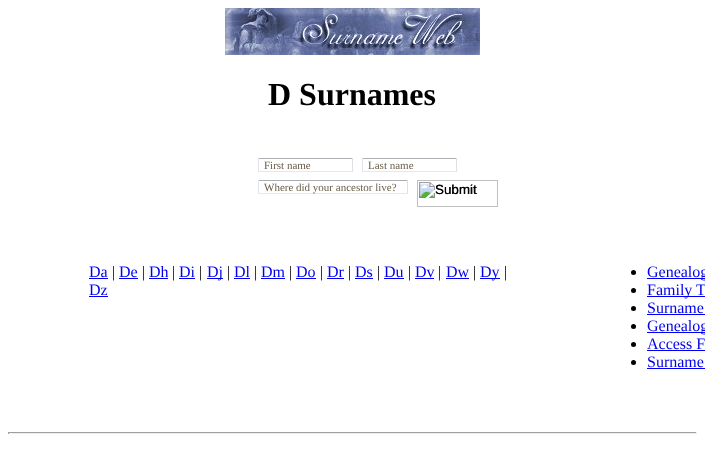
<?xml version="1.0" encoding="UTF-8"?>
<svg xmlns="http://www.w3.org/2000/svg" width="705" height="458">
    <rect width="100%" height="100%" fill="#FFFFFF"/>
    <image x="225" y="8" width="255" height="47" href="img_01.png"/>
    <text x="268" y="105" font-family="Liberation Serif" font-size="32" font-weight="700" fill="#000000">D Surnames</text>
    <rect x="258" y="158" width="95" height="1" fill="#AAADB2"/>
    <rect x="352" y="158" width="1" height="14" fill="#DCDFE6"/>
    <rect x="258" y="171" width="95" height="1" fill="#E2E9EF"/>
    <rect x="258" y="158" width="1" height="14" fill="#E2E2EC"/>
    <text x="264" y="169" font-family="Liberation Serif" font-size="11" fill="#695E49">First name</text>
    <rect x="362" y="158" width="95" height="1" fill="#AAADB2"/>
    <rect x="456" y="158" width="1" height="14" fill="#DCDFE6"/>
    <rect x="362" y="171" width="95" height="1" fill="#E2E9EF"/>
    <rect x="362" y="158" width="1" height="14" fill="#E2E2EC"/>
    <text x="368" y="169" font-family="Liberation Serif" font-size="11" fill="#695E49">Last name</text>
    <rect x="258" y="180" width="150" height="1" fill="#AAADB2"/>
    <rect x="407" y="180" width="1" height="14" fill="#DCDFE6"/>
    <rect x="258" y="193" width="150" height="1" fill="#E2E9EF"/>
    <rect x="258" y="180" width="1" height="14" fill="#E2E2EC"/>
    <text x="264" y="191" font-family="Liberation Serif" font-size="11" fill="#695E49">Where did your ancestor live?</text>
    <image x="417" y="180" width="81" height="27" href="img_02.png"/>
    <text x="435" y="194" font-family="Liberation Sans" font-size="13.5" fill="#000000">Submit</text>
    <text x="89" y="277" font-family="Liberation Serif" font-size="16" fill="#0000EE">Da</text>
    <rect x="89" y="278" width="19" height="1" fill="#0000EE"/>
    <text x="112" y="277" font-family="Liberation Serif" font-size="16" fill="#000000">|</text>
    <text x="119" y="277" font-family="Liberation Serif" font-size="16" fill="#0000EE">De</text>
    <rect x="119" y="278" width="19" height="1" fill="#0000EE"/>
    <text x="142" y="277" font-family="Liberation Serif" font-size="16" fill="#000000">|</text>
    <text x="149" y="277" font-family="Liberation Serif" font-size="16" fill="#0000EE">Dh</text>
    <rect x="149" y="278" width="19" height="1" fill="#0000EE"/>
    <text x="172" y="277" font-family="Liberation Serif" font-size="16" fill="#000000">|</text>
    <text x="179" y="277" font-family="Liberation Serif" font-size="16" fill="#0000EE">Di</text>
    <rect x="179" y="278" width="16" height="1" fill="#0000EE"/>
    <text x="199" y="277" font-family="Liberation Serif" font-size="16" fill="#000000">|</text>
    <rect x="207" y="278" width="16" height="1" fill="#0000EE"/>
    <text x="207" y="277" font-family="Liberation Serif" font-size="16" fill="#0000EE">Dj</text>
    <text x="227" y="277" font-family="Liberation Serif" font-size="16" fill="#000000">|</text>
    <text x="234" y="277" font-family="Liberation Serif" font-size="16" fill="#0000EE">Dl</text>
    <rect x="234" y="278" width="16" height="1" fill="#0000EE"/>
    <text x="254" y="277" font-family="Liberation Serif" font-size="16" fill="#000000">|</text>
    <text x="261" y="277" font-family="Liberation Serif" font-size="16" fill="#0000EE">Dm</text>
    <rect x="261" y="278" width="24" height="1" fill="#0000EE"/>
    <text x="289" y="277" font-family="Liberation Serif" font-size="16" fill="#000000">|</text>
    <text x="296" y="277" font-family="Liberation Serif" font-size="16" fill="#0000EE">Do</text>
    <rect x="296" y="278" width="20" height="1" fill="#0000EE"/>
    <text x="320" y="277" font-family="Liberation Serif" font-size="16" fill="#000000">|</text>
    <text x="327" y="277" font-family="Liberation Serif" font-size="16" fill="#0000EE">Dr</text>
    <rect x="327" y="278" width="17" height="1" fill="#0000EE"/>
    <text x="348" y="277" font-family="Liberation Serif" font-size="16" fill="#000000">|</text>
    <text x="355" y="277" font-family="Liberation Serif" font-size="16" fill="#0000EE">Ds</text>
    <rect x="355" y="278" width="18" height="1" fill="#0000EE"/>
    <text x="377" y="277" font-family="Liberation Serif" font-size="16" fill="#000000">|</text>
    <text x="384" y="277" font-family="Liberation Serif" font-size="16" fill="#0000EE">Du</text>
    <rect x="384" y="278" width="20" height="1" fill="#0000EE"/>
    <text x="408" y="277" font-family="Liberation Serif" font-size="16" fill="#000000">|</text>
    <text x="415" y="277" font-family="Liberation Serif" font-size="16" fill="#0000EE">Dv</text>
    <rect x="415" y="278" width="19" height="1" fill="#0000EE"/>
    <text x="438" y="277" font-family="Liberation Serif" font-size="16" fill="#000000">|</text>
    <text x="446" y="277" font-family="Liberation Serif" font-size="16" fill="#0000EE">Dw</text>
    <rect x="446" y="278" width="23" height="1" fill="#0000EE"/>
    <text x="473" y="277" font-family="Liberation Serif" font-size="16" fill="#000000">|</text>
    <rect x="480" y="278" width="20" height="1" fill="#0000EE"/>
    <text x="480" y="277" font-family="Liberation Serif" font-size="16" fill="#0000EE">Dy</text>
    <text x="504" y="277" font-family="Liberation Serif" font-size="16" fill="#000000">|</text>
    <text x="89" y="295" font-family="Liberation Serif" font-size="16" fill="#0000EE">Dz</text>
    <rect x="89" y="296" width="19" height="1" fill="#0000EE"/>
    <circle cx="633.5" cy="272.5" r="2.5" fill="#000000"/>
    <rect x="647" y="278" width="58" height="1" fill="#0000EE"/>
    <text x="647" y="277" font-family="Liberation Serif" font-size="16" fill="#0000EE">Genealog</text>
    <circle cx="633.5" cy="290.5" r="2.5" fill="#000000"/>
    <rect x="647" y="296" width="58" height="1" fill="#0000EE"/>
    <text x="647" y="295" font-family="Liberation Serif" font-size="16" fill="#0000EE">Family T</text>
    <circle cx="633.5" cy="308.5" r="2.5" fill="#000000"/>
    <text x="647" y="313" font-family="Liberation Serif" font-size="16" fill="#0000EE">Surname</text>
    <rect x="647" y="314" width="58" height="1" fill="#0000EE"/>
    <circle cx="633.5" cy="326.5" r="2.5" fill="#000000"/>
    <rect x="647" y="332" width="58" height="1" fill="#0000EE"/>
    <text x="647" y="331" font-family="Liberation Serif" font-size="16" fill="#0000EE">Genealog</text>
    <circle cx="633.5" cy="344.5" r="2.5" fill="#000000"/>
    <text x="647" y="349" font-family="Liberation Serif" font-size="16" fill="#0000EE">Access F</text>
    <rect x="647" y="350" width="58" height="1" fill="#0000EE"/>
    <circle cx="633.5" cy="362.5" r="2.5" fill="#000000"/>
    <text x="647" y="367" font-family="Liberation Serif" font-size="16" fill="#0000EE">Surname</text>
    <rect x="647" y="368" width="58" height="1" fill="#0000EE"/>
    <rect x="8" y="432" width="689" height="1" fill="#9F9F9F"/>
    <rect x="696" y="432" width="1" height="2" fill="#EEEEEE"/>
    <rect x="8" y="433" width="689" height="1" fill="#EEEEEE"/>
    <rect x="8" y="432" width="1" height="2" fill="#9F9F9F"/>
</svg>
